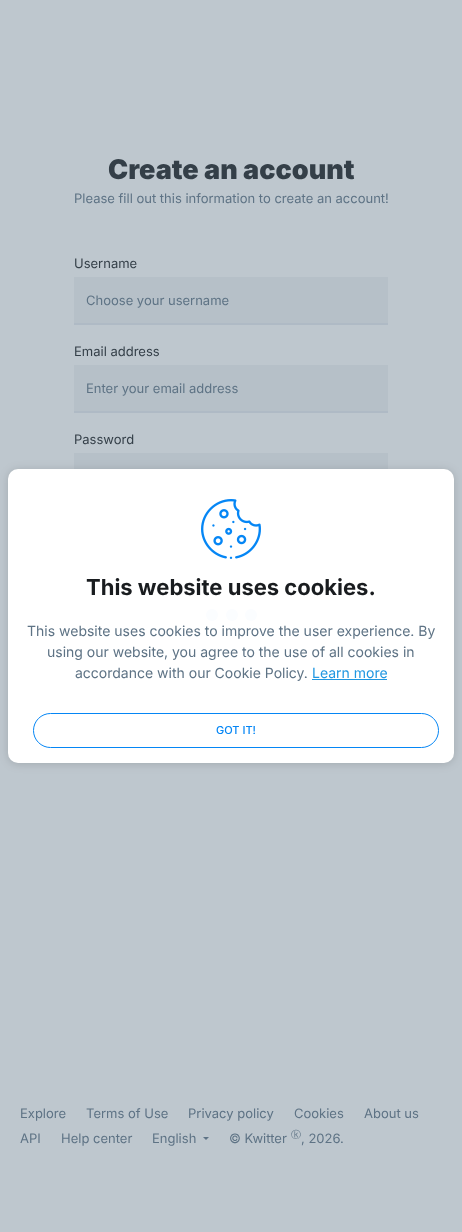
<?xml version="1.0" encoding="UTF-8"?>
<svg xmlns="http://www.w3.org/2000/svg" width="462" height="1232">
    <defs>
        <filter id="blur1" x="-50%" y="-200%" width="200%" height="500%"><feGaussianBlur stdDeviation="5"/></filter>
    </defs>
    <rect width="100%" height="100%" fill="#BEC7CE"/>
    <text x="108" y="179" font-family="Inter" font-size="27" font-weight="900" fill="#343F48">Create an account</text>
    <text x="74" y="203" font-family="Inter" font-size="13" fill="#5E7385">Please fill out this information to create an account!</text>
    <text x="74" y="268" font-family="Inter" font-size="13" fill="#343F48">Username</text>
    <rect x="74" y="277" width="314" height="46" fill="#B6C0C8"/>
    <rect x="74" y="323" width="314" height="2" fill="#AFBAC5"/>
    <text x="86" y="305" font-family="Inter" font-size="13" fill="#5E7385">Choose your username</text>
    <text x="74" y="356" font-family="Inter" font-size="13" fill="#343F48">Email address</text>
    <rect x="74" y="365" width="314" height="46" fill="#B6C0C8"/>
    <rect x="74" y="411" width="314" height="2" fill="#AFBAC5"/>
    <text x="86" y="393" font-family="Inter" font-size="13" fill="#5E7385">Enter your email address</text>
    <text x="74" y="444" font-family="Inter" font-size="13" fill="#343F48">Password</text>
    <rect x="74" y="453" width="314" height="16" fill="#B6C0C8"/>
    <text x="20" y="1118" font-family="Inter" font-size="13" fill="#5E7385">Explore</text>
    <text x="86" y="1118" font-family="Inter" font-size="13" fill="#5E7385">Terms of Use</text>
    <text x="188" y="1118" font-family="Inter" font-size="13" fill="#5E7385">Privacy policy</text>
    <text x="294" y="1118" font-family="Inter" font-size="13" fill="#5E7385">Cookies</text>
    <text x="364" y="1118" font-family="Inter" font-size="13" fill="#5E7385">About us</text>
    <text x="20" y="1143" font-family="Inter" font-size="13" fill="#5E7385">API</text>
    <text x="61" y="1143" font-family="Inter" font-size="13" fill="#5E7385">Help center</text>
    <text x="152" y="1143" font-family="Inter" font-size="13" fill="#5E7385">English</text>
    <path d="M 203 1137 H 209 L 206 1140 Z" fill="#5E7385"/>
    <text x="229" y="1143" font-family="Inter" font-size="13" fill="#5E7385">© Kwitter</text>
    <text x="291" y="1138" font-family="WenQuanYi Zen Hei" font-size="10" font-weight="500" fill="#5E7385">ⓚ</text>
    <text x="301" y="1143" font-family="Inter" font-size="13" fill="#5E7385">, 2026.</text>
    <rect x="8" y="470" width="446" height="294" rx="10" fill="#050505" fill-opacity="0.15" filter="url(#blur1)"/>
    <rect x="8" y="469" width="446" height="294" rx="10" fill="#FFFFFF"/>
    <image x="201" y="499" width="60" height="60" href="img_01.png"/>
    <text x="86" y="595" font-family="Inter" font-size="22" font-weight="700" fill="#191C1F">This website uses cookies.</text>
    <text x="27" y="636" font-family="Inter" font-size="14" fill="#5E7385">This website uses cookies to improve the user experience. By</text>
    <text x="47" y="657" font-family="Inter" font-size="14" fill="#5E7385">using our website, you agree to the use of all cookies in</text>
    <text x="75" y="678" font-family="Inter" font-size="14" fill="#5E7385">accordance with our Cookie Policy.</text>
    <text x="312" y="678" font-family="Inter" font-size="14" fill="#2097E1">Learn more</text>
    <rect x="312" y="679" width="75" height="1" fill="#2097E1"/>
    <rect x="33.5" y="713.5" width="405" height="34" rx="17" fill="none" stroke="#0586F5"/>
    <text x="216" y="734" font-family="Inter" font-size="11" font-weight="500" fill="#0586F5">GOT IT!</text>
    <circle cx="212" cy="615" r="6" fill="#FBFDFF"/>
    <circle cx="232" cy="615" r="6" fill="#FBFDFF"/>
    <circle cx="251" cy="615" r="6" fill="#FBFDFF"/>
</svg>
